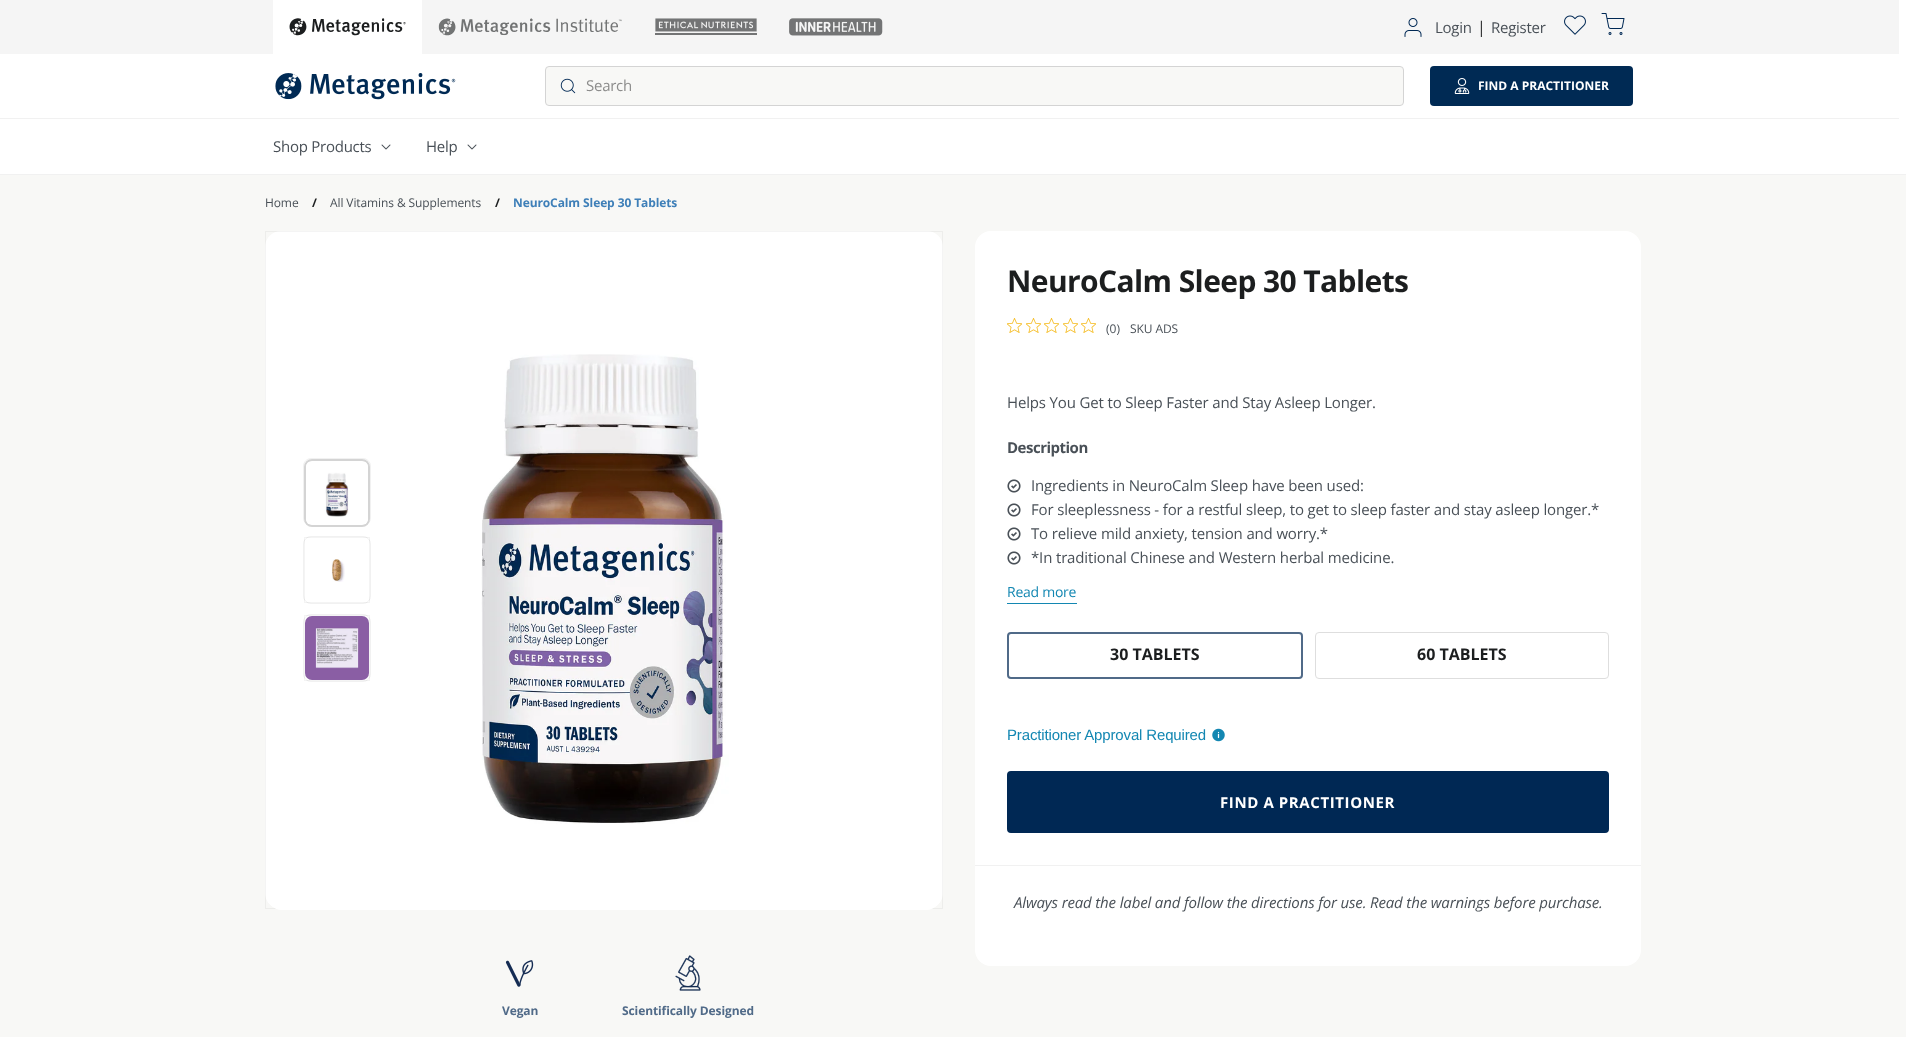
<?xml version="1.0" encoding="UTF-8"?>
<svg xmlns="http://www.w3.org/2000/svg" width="1906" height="1063">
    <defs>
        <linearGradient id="g1" gradientUnits="userSpaceOnUse" x1="953" y1="175" x2="953" y2="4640"><stop offset="0.43" stop-color="#F8F8F6"/><stop offset="1" stop-color="#FFFFFF"/></linearGradient>
        <clipPath id="clip1"><rect x="1007" y="263" width="570" height="36"/></clipPath>
    </defs>
    <rect width="100%" height="100%" fill="#FFFFFF"/>
    <rect x="0" y="174" width="1906" height="1" fill="#F1F1F1"/>
    <rect x="0" y="0" width="1899" height="54" fill="#F5F5F5"/>
    <rect x="273" y="0" width="149" height="54" fill="#FFFFFF"/>
    <image x="289" y="18" width="117" height="18" href="img_01.png"/>
    <image x="438" y="18" width="184" height="18" href="img_02.png"/>
    <image x="655" y="18" width="102" height="17" href="img_03.png"/>
    <image x="789" y="18" width="94" height="18" href="img_04.png"/>
    <image x="1404" y="18" width="18" height="19" href="img_05.png"/>
    <text x="1435" y="33" font-family="Open Sans" font-size="15" letter-spacing="-0.25" fill="#495057">Login</text>
    <text x="1477" y="33" font-family="Open Sans" font-size="16" letter-spacing="0.6" fill="#2B2C2D">|</text>
    <text x="1491" y="33" font-family="Open Sans" font-size="15" letter-spacing="-0.25" fill="#495057">Register</text>
    <image x="1564" y="15" width="22" height="20" href="img_06.png"/>
    <image x="1601" y="13" width="24" height="22" href="img_07.png"/>
    <image x="275" y="73" width="181" height="27" href="img_08.png"/>
    <rect x="545.5" y="66.5" width="858" height="39" rx="3.5" fill="#F8F8F6" stroke="#D4D4D4"/>
    <image x="560" y="78" width="16" height="16" href="img_09.png"/>
    <text x="586" y="91" font-family="Open Sans" font-size="15" letter-spacing="-0.25" fill="#8D8D8C">Search</text>
    <rect x="1430" y="66" width="203" height="40" rx="4" fill="#002A54"/>
    <image x="1454" y="78" width="16" height="16" href="img_10.png"/>
    <text x="1478" y="90" font-family="Open Sans" font-size="12" font-weight="700" fill="#FFFFFF">FIND A PRACTITIONER</text>
    <rect x="0" y="118" width="1899" height="1" fill="#F1F1F1"/>
    <text x="273" y="152" font-family="Open Sans" font-size="15" letter-spacing="-0.25" fill="#495057">Shop Products</text>
    <image x="381" y="144" width="10" height="6" href="img_11.png"/>
    <text x="426" y="152" font-family="Open Sans" font-size="15" letter-spacing="-0.25" fill="#495057">Help</text>
    <image x="467" y="144" width="10" height="6" href="img_11.png"/>
    <rect x="0" y="175" width="1906" height="862" fill="url(#g1)"/>
    <text x="265" y="207" font-family="Open Sans" font-size="12" letter-spacing="-0.1" fill="#495057">Home</text>
    <text x="312" y="207" font-family="Open Sans" font-size="12" font-weight="700" letter-spacing="-0.1" fill="#1C1E1F">/</text>
    <text x="330" y="207" font-family="Open Sans" font-size="12" letter-spacing="-0.1" fill="#495057">All Vitamins &amp; Supplements</text>
    <text x="495" y="207" font-family="Open Sans" font-size="12" font-weight="700" letter-spacing="-0.1" fill="#1C1E1F">/</text>
    <text x="513" y="207" font-family="Open Sans" font-size="12" font-weight="700" letter-spacing="-0.1" fill="#3E7FB8">NeuroCalm Sleep 30 Tablets</text>
    <rect x="975" y="231" width="666" height="735" rx="16" fill="#FFFFFF"/>
    <g clip-path="url(#clip1)">
        <text x="1007" y="292" font-family="Open Sans" font-size="30" font-weight="700" letter-spacing="-0.6" fill="#1C1E1F">NeuroCalm Sleep 30 Tablets</text>
    </g>
    <image x="1007" y="318" width="15" height="15" href="img_12.png"/>
    <image x="1026" y="318" width="15" height="15" href="img_12.png"/>
    <image x="1044" y="318" width="15" height="15" href="img_12.png"/>
    <image x="1063" y="318" width="15" height="15" href="img_12.png"/>
    <image x="1081" y="318" width="15" height="15" href="img_12.png"/>
    <text x="1106" y="333" font-family="Open Sans" font-size="12" fill="#495057">(0)</text>
    <text x="1130" y="333" font-family="Open Sans" font-size="12" letter-spacing="-0.1" fill="#495057">SKU ADS</text>
    <text x="1007" y="408" font-family="Open Sans" font-size="15" letter-spacing="-0.15" fill="#495057">Helps You Get to Sleep Faster and Stay Asleep Longer.</text>
    <text x="1007" y="453" font-family="Open Sans" font-size="15" font-weight="700" letter-spacing="-0.5" fill="#495057">Description</text>
    <image x="1007" y="479" width="14" height="14" href="img_13.png"/>
    <text x="1031" y="491" font-family="Open Sans" font-size="15" letter-spacing="-0.15" fill="#495057">Ingredients in NeuroCalm Sleep have been used:</text>
    <image x="1007" y="503" width="14" height="14" href="img_13.png"/>
    <text x="1031" y="515" font-family="Open Sans" font-size="15" letter-spacing="-0.15" fill="#495057">For sleeplessness - for a restful sleep, to get to sleep faster and stay asleep longer.*</text>
    <image x="1007" y="527" width="14" height="14" href="img_13.png"/>
    <text x="1031" y="539" font-family="Open Sans" font-size="15" letter-spacing="-0.15" fill="#495057">To relieve mild anxiety, tension and worry.*</text>
    <image x="1007" y="551" width="14" height="14" href="img_13.png"/>
    <text x="1031" y="563" font-family="Open Sans" font-size="15" letter-spacing="-0.15" fill="#495057">*In traditional Chinese and Western herbal medicine.</text>
    <text x="1007" y="597" font-family="Open Sans" font-size="14" letter-spacing="-0.25" fill="#1387B2">Read more</text>
    <rect x="1007" y="603" width="70" height="1" fill="#1387B2"/>
    <rect x="1008" y="633" width="294" height="45" rx="3" fill="none" stroke="#506A88" stroke-width="2"/>
    <text x="1110" y="660" font-family="Open Sans" font-size="16" font-weight="700" fill="#1C1E1F">30 TABLETS</text>
    <rect x="1315.5" y="632.5" width="293" height="46" rx="3.5" fill="none" stroke="#DEDEDE"/>
    <text x="1417" y="660" font-family="Open Sans" font-size="16" font-weight="700" fill="#1C1E1F">60 TABLETS</text>
    <text x="1007" y="740" font-family="Liberation Sans" font-size="15" letter-spacing="-0.15" fill="#1387B2">Practitioner Approval Required</text>
    <image x="1212" y="728" width="13" height="14" href="img_14.png"/>
    <rect x="1008" y="772" width="600" height="60" rx="3" fill="#002854" stroke="#002854" stroke-width="2"/>
    <text x="1220" y="808" font-family="Open Sans" font-size="15" font-weight="700" letter-spacing="0.6" fill="#FFFFFF">FIND A PRACTITIONER</text>
    <rect x="975" y="865" width="666" height="1" fill="#F1F1F1"/>
    <text x="1014" y="908" font-family="Open Sans" font-size="15" font-style="italic" letter-spacing="-0.15" fill="#495057">Always read the label and follow the directions for use. Read the warnings before purchase.</text>
    <rect x="265" y="231" width="678" height="678" rx="16" fill="#FFFFFF"/>
    <rect x="265.5" y="231.5" width="677" height="677" fill="none" stroke="#2B2C2D" stroke-opacity="0.05"/>
    <image x="266" y="354" width="676" height="556" href="img_15.png"/>
    <rect x="303.5" y="458.5" width="67" height="67" rx="7.5" fill="none" stroke="#F1F1F1"/>
    <rect x="305" y="460" width="64" height="66" rx="7" fill="none" stroke="#D4D4D4" stroke-width="2"/>
    <image x="306" y="462" width="62" height="62" href="img_16.png"/>
    <rect x="303.5" y="536.5" width="67" height="67" rx="7.5" fill="none" stroke="#F1F1F1"/>
    <rect x="304.5" y="537.5" width="65" height="65" fill="none" stroke="#2B2C2D" stroke-opacity="0.05"/>
    <image x="331" y="559" width="14" height="23" href="img_17.png"/>
    <rect x="303.5" y="614.5" width="67" height="67" rx="7.5" fill="none" stroke="#F1F1F1"/>
    <rect x="304.5" y="615.5" width="65" height="65" fill="none" stroke="#2B2C2D" stroke-opacity="0.05"/>
    <image x="305" y="616" width="64" height="64" href="img_18.png"/>
    <image x="505" y="960" width="29" height="27" href="img_19.png"/>
    <text x="502" y="1015" font-family="Open Sans" font-size="12" font-weight="700" letter-spacing="-0.1" fill="#506A88">Vegan</text>
    <image x="675" y="955" width="26" height="36" href="img_20.png"/>
    <text x="622" y="1015" font-family="Open Sans" font-size="12" font-weight="700" letter-spacing="-0.1" fill="#506A88">Scientifically Designed</text>
</svg>
